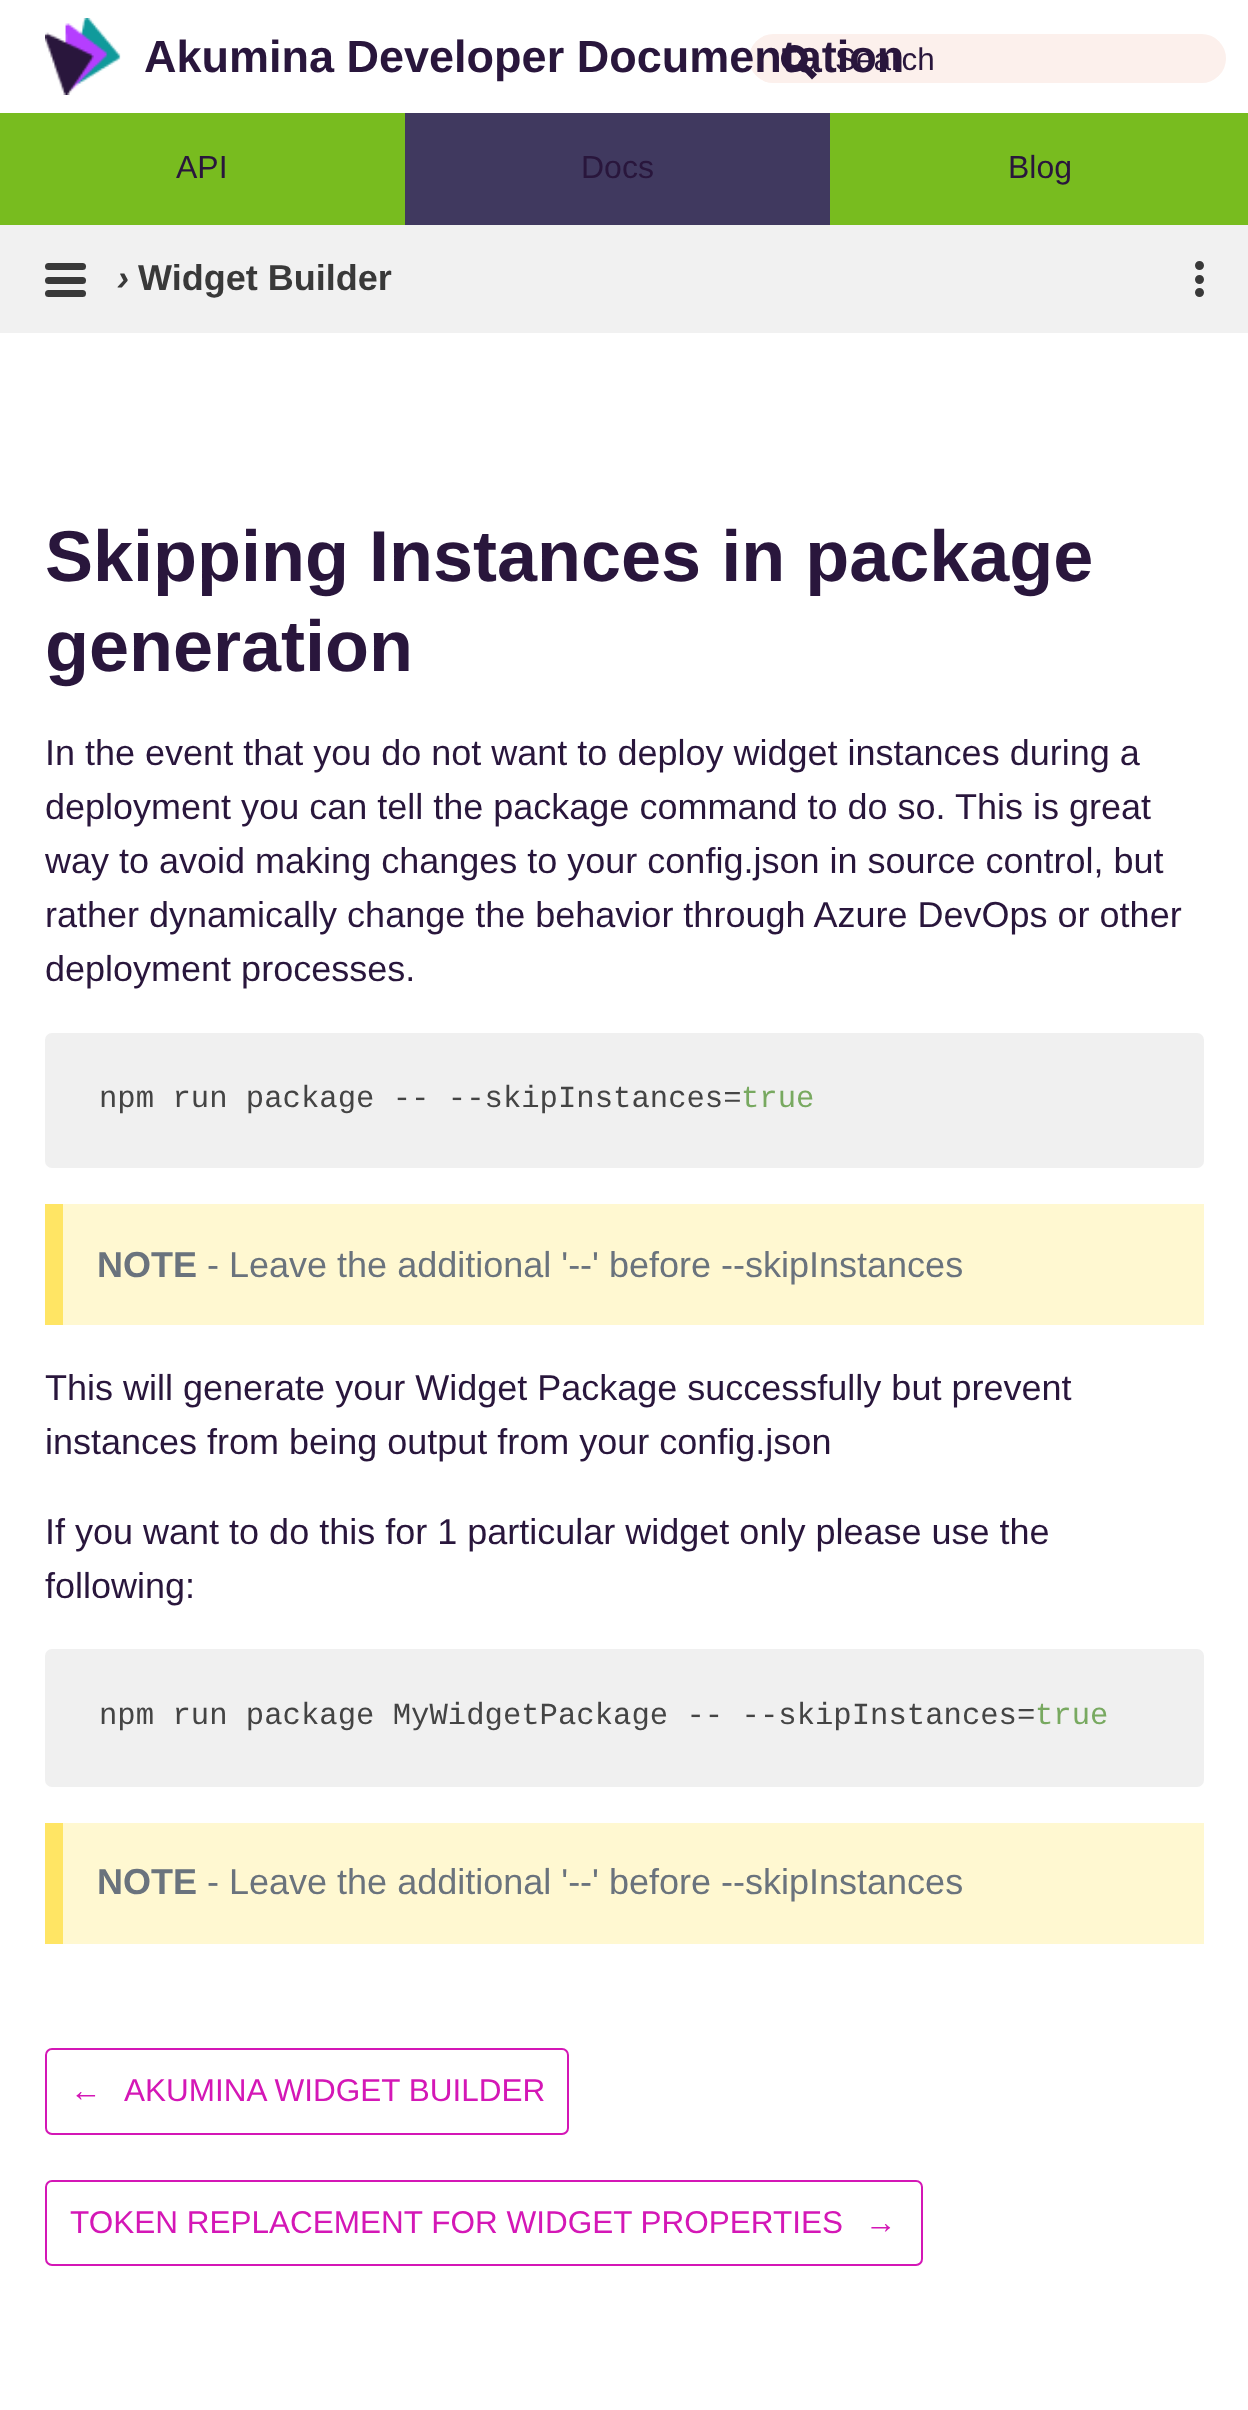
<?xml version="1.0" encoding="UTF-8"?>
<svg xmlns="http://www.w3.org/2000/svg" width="1248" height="2410">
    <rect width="100%" height="100%" fill="#FFFFFF"/>
    <image x="45" y="18" width="76" height="77" href="img_01.png"/>
    <rect x="749" y="34" width="477" height="49" rx="24.5" fill="#FCF0EC"/>
    <circle cx="794.5" cy="58.5" r="10" fill="none" stroke="#29163C" stroke-width="7"/>
    <path d="M 801 68 L 805.5 63.5 L 817 74.5 L 812 79.5 Z" fill="#29163C"/>
    <text x="835" y="70" font-family="Liberation Sans" font-size="31.5" fill="#29163C">Search</text>
    <text x="144" y="72" font-family="Liberation Sans" font-size="45" font-weight="700" fill="#29163C">Akumina Developer Documentation</text>
    <rect x="0" y="113" width="1248" height="112" fill="#78BC1F"/>
    <text x="176" y="178" font-family="Liberation Sans" font-size="32" fill="#29163C">API</text>
    <rect x="405" y="113" width="425" height="112" fill="#40395F"/>
    <text x="581" y="178" font-family="Liberation Sans" font-size="32" fill="#29163C">Docs</text>
    <text x="1008" y="178" font-family="Liberation Sans" font-size="32" fill="#29163C">Blog</text>
    <rect x="0" y="225" width="1248" height="108" fill="#F1F1F1"/>
    <rect x="45" y="263" width="41" height="7" rx="3.5" fill="#393939"/>
    <rect x="45" y="277" width="41" height="7" rx="3.5" fill="#393939"/>
    <rect x="45" y="290" width="41" height="7" rx="3.5" fill="#393939"/>
    <text x="117" y="290" font-family="Liberation Sans" font-size="36" font-weight="700" font-style="italic" fill="#393939">›</text>
    <text x="138" y="290" font-family="Liberation Sans" font-size="36" font-weight="700" fill="#393939">Widget Builder</text>
    <circle cx="1199.5" cy="279.5" r="3.5" fill="#393939" stroke="#393939" stroke-width="2"/>
    <circle cx="1199.5" cy="265.5" r="3.5" fill="#393939" stroke="#393939" stroke-width="2"/>
    <circle cx="1199.5" cy="292.5" r="3.5" fill="#393939" stroke="#393939" stroke-width="2"/>
    <text font-family="Liberation Sans" font-size="72" font-weight="700" fill="#29163C">
        <tspan x="45" y="581">Skipping Instances in package</tspan>
        <tspan x="45" y="671">generation</tspan>
    </text>
    <text font-family="Liberation Sans" font-size="36" fill="#29163C">
        <tspan x="45" y="765">In the event that you do not want to deploy widget instances during a</tspan>
        <tspan x="45" y="819">deployment you can tell the package command to do so. This is great</tspan>
        <tspan x="45" y="873">way to avoid making changes to your config.json in source control, but</tspan>
        <tspan x="45" y="927">rather dynamically change the behavior through Azure DevOps or other</tspan>
        <tspan x="45" y="981">deployment processes.</tspan>
    </text>
    <rect x="45" y="1033" width="1159" height="135" rx="7" fill="#F0F0F0"/>
    <text x="99" y="1107" font-family="Liberation Mono" font-size="30.6" fill="#444444">npm run package -- --skipInstances=</text>
    <text x="741" y="1107" font-family="Liberation Mono" font-size="30.6" fill="#78A960">true</text>
    <rect x="63" y="1204" width="1141" height="121" fill="#FFF8D1"/>
    <rect x="45" y="1204" width="18" height="121" fill="#FFE564"/>
    <text x="97" y="1277" font-family="Liberation Sans" font-size="36" font-weight="700" fill="#6A737D">NOTE</text>
    <text x="207" y="1277" font-family="Liberation Sans" font-size="36" fill="#6A737D">- Leave the additional '--' before --skipInstances</text>
    <text font-family="Liberation Sans" font-size="36" fill="#29163C">
        <tspan x="45" y="1400">This will generate your Widget Package successfully but prevent</tspan>
        <tspan x="45" y="1454">instances from being output from your config.json</tspan>
    </text>
    <text font-family="Liberation Sans" font-size="36" fill="#29163C">
        <tspan x="45" y="1544">If you want to do this for 1 particular widget only please use the</tspan>
        <tspan x="45" y="1598">following:</tspan>
    </text>
    <rect x="45" y="1649" width="1159" height="138" rx="7" fill="#F0F0F0"/>
    <text x="99" y="1724" font-family="Liberation Mono" font-size="30.6" fill="#444444">npm run package MyWidgetPackage -- --skipInstances=</text>
    <text x="1035" y="1724" font-family="Liberation Mono" font-size="30.6" fill="#78A960">true</text>
    <rect x="63" y="1823" width="1141" height="121" fill="#FFF8D1"/>
    <rect x="45" y="1823" width="18" height="121" fill="#FFE564"/>
    <text x="97" y="1894" font-family="Liberation Sans" font-size="36" font-weight="700" fill="#6A737D">NOTE</text>
    <text x="207" y="1894" font-family="Liberation Sans" font-size="36" fill="#6A737D">- Leave the additional '--' before --skipInstances</text>
    <rect x="46" y="2049" width="522" height="85" rx="6" fill="none" stroke="#D417B6" stroke-width="2"/>
    <text x="70" y="2101" font-family="Liberation Sans" font-size="31.5" fill="#D417B6">←</text>
    <text x="124" y="2101" font-family="Liberation Sans" font-size="31.5" fill="#D417B6">AKUMINA WIDGET BUILDER</text>
    <rect x="46" y="2181" width="876" height="84" rx="6" fill="none" stroke="#D417B6" stroke-width="2"/>
    <text x="70" y="2233" font-family="Liberation Sans" font-size="31.5" fill="#D417B6">TOKEN REPLACEMENT FOR WIDGET PROPERTIES</text>
    <text x="865" y="2233" font-family="Liberation Sans" font-size="31.5" fill="#D417B6">→</text>
</svg>
